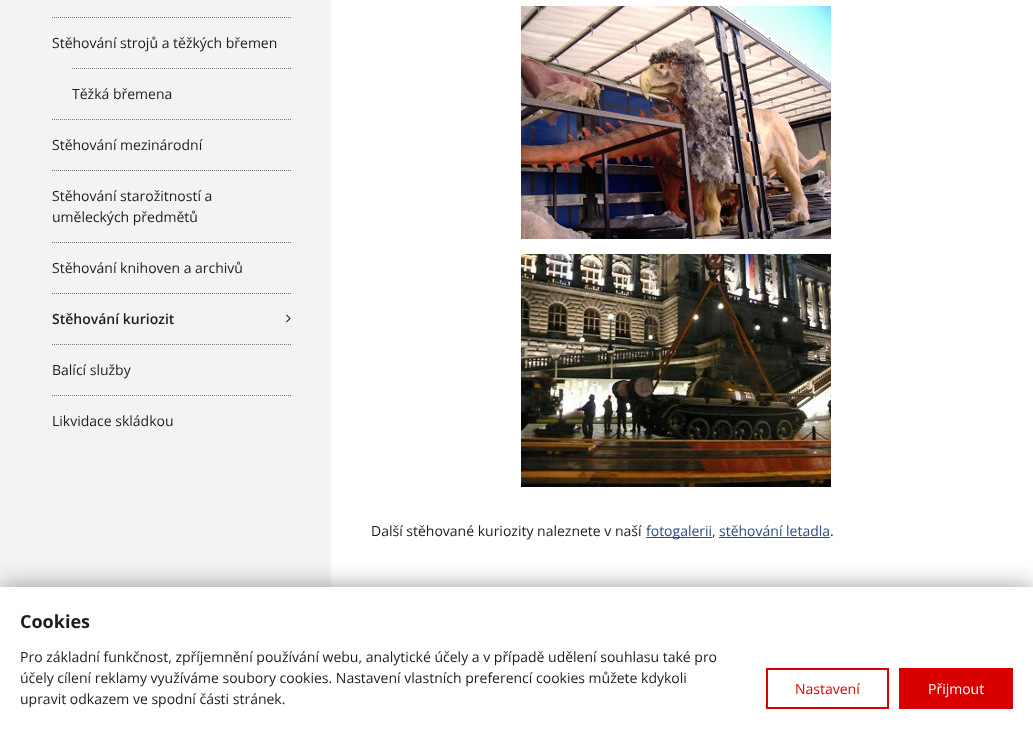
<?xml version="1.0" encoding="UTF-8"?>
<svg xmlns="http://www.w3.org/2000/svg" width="1033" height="739">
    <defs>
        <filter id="blur1" x="-50%" y="-200%" width="200%" height="500%"><feGaussianBlur stdDeviation="12.5"/></filter>
    </defs>
    <rect width="100%" height="100%" fill="#FFFFFF"/>
    <rect x="0" y="0" width="331" height="587" fill="#F3F3F3"/>
    <path d="M 52 17.5 H 291" fill="none" stroke="#777777" stroke-dasharray="1 1"/>
    <text x="52" y="48" font-family="Open Sans" font-size="14" fill="#1C1C1C">Stěhování strojů a těžkých břemen</text>
    <path d="M 72 68.5 H 291" fill="none" stroke="#777777" stroke-dasharray="1 1"/>
    <text x="72" y="99" font-family="Open Sans" font-size="14" fill="#1C1C1C">Těžká břemena</text>
    <path d="M 52 119.5 H 291" fill="none" stroke="#777777" stroke-dasharray="1 1"/>
    <text x="52" y="150" font-family="Open Sans" font-size="14" fill="#1C1C1C">Stěhování mezinárodní</text>
    <path d="M 52 170.5 H 291" fill="none" stroke="#777777" stroke-dasharray="1 1"/>
    <text font-family="Open Sans" font-size="14" fill="#1C1C1C">
        <tspan x="52" y="201">Stěhování starožitností a</tspan>
        <tspan x="52" y="222">uměleckých předmětů</tspan>
    </text>
    <path d="M 52 242.5 H 291" fill="none" stroke="#777777" stroke-dasharray="1 1"/>
    <text x="52" y="273" font-family="Open Sans" font-size="14" fill="#1C1C1C">Stěhování knihoven a archivů</text>
    <path d="M 52 293.5 H 291" fill="none" stroke="#777777" stroke-dasharray="1 1"/>
    <text x="52" y="324" font-family="Open Sans" font-size="14" font-weight="600" fill="#1C1C1C">Stěhování kuriozit</text>
    <image x="286" y="314" width="5" height="9" href="img_01.png"/>
    <path d="M 52 344.5 H 291" fill="none" stroke="#777777" stroke-dasharray="1 1"/>
    <text x="52" y="375" font-family="Open Sans" font-size="14" fill="#1C1C1C">Balící služby</text>
    <path d="M 52 395.5 H 291" fill="none" stroke="#777777" stroke-dasharray="1 1"/>
    <text x="52" y="426" font-family="Open Sans" font-size="14" fill="#1C1C1C">Likvidace skládkou</text>
    <image x="521" y="6" width="310" height="233" href="img_02.png"/>
    <image x="521" y="254" width="310" height="233" href="img_03.png"/>
    <text x="371" y="536" font-family="Open Sans" font-size="14" fill="#1C1C1C">Další stěhované kuriozity naleznete v naší</text>
    <rect x="646" y="537" width="66" height="1" fill="#2A4A88"/>
    <text x="646" y="536" font-family="Open Sans" font-size="14" fill="#2A4A88">fotogalerii</text>
    <text x="712" y="536" font-family="Open Sans" font-size="14" fill="#1C1C1C">,</text>
    <text x="719" y="536" font-family="Open Sans" font-size="14" fill="#2A4A88">stěhování letadla</text>
    <rect x="719" y="537" width="111" height="1" fill="#2A4A88"/>
    <text x="830" y="536" font-family="Open Sans" font-size="14" fill="#1C1C1C">.</text>
    <rect x="0" y="587" width="1033" height="152" fill="#000000" fill-opacity="0.4" filter="url(#blur1)"/>
    <rect x="0" y="587" width="1033" height="152" fill="#FFFFFF"/>
    <text x="20" y="628" font-family="Open Sans" font-size="18" font-weight="700" fill="#1C1C1C">Cookies</text>
    <text font-family="Open Sans" font-size="14" fill="#1C1C1C">
        <tspan x="20" y="662">Pro základní funkčnost, zpříjemnění používání webu, analytické účely a v případě udělení souhlasu také pro</tspan>
        <tspan x="20" y="683">účely cílení reklamy využíváme soubory cookies. Nastavení vlastních preferencí cookies můžete kdykoli</tspan>
        <tspan x="20" y="704">upravit odkazem ve spodní části stránek.</tspan>
    </text>
    <rect x="767" y="669" width="121" height="39" fill="none" stroke="#D80001" stroke-width="2"/>
    <text x="795" y="694" font-family="Open Sans" font-size="14" fill="#D80001">Nastavení</text>
    <rect x="899" y="668" width="114" height="41" fill="#D80001"/>
    <text x="928" y="694" font-family="Open Sans" font-size="14" fill="#FFFFFF">Přijmout</text>
</svg>
